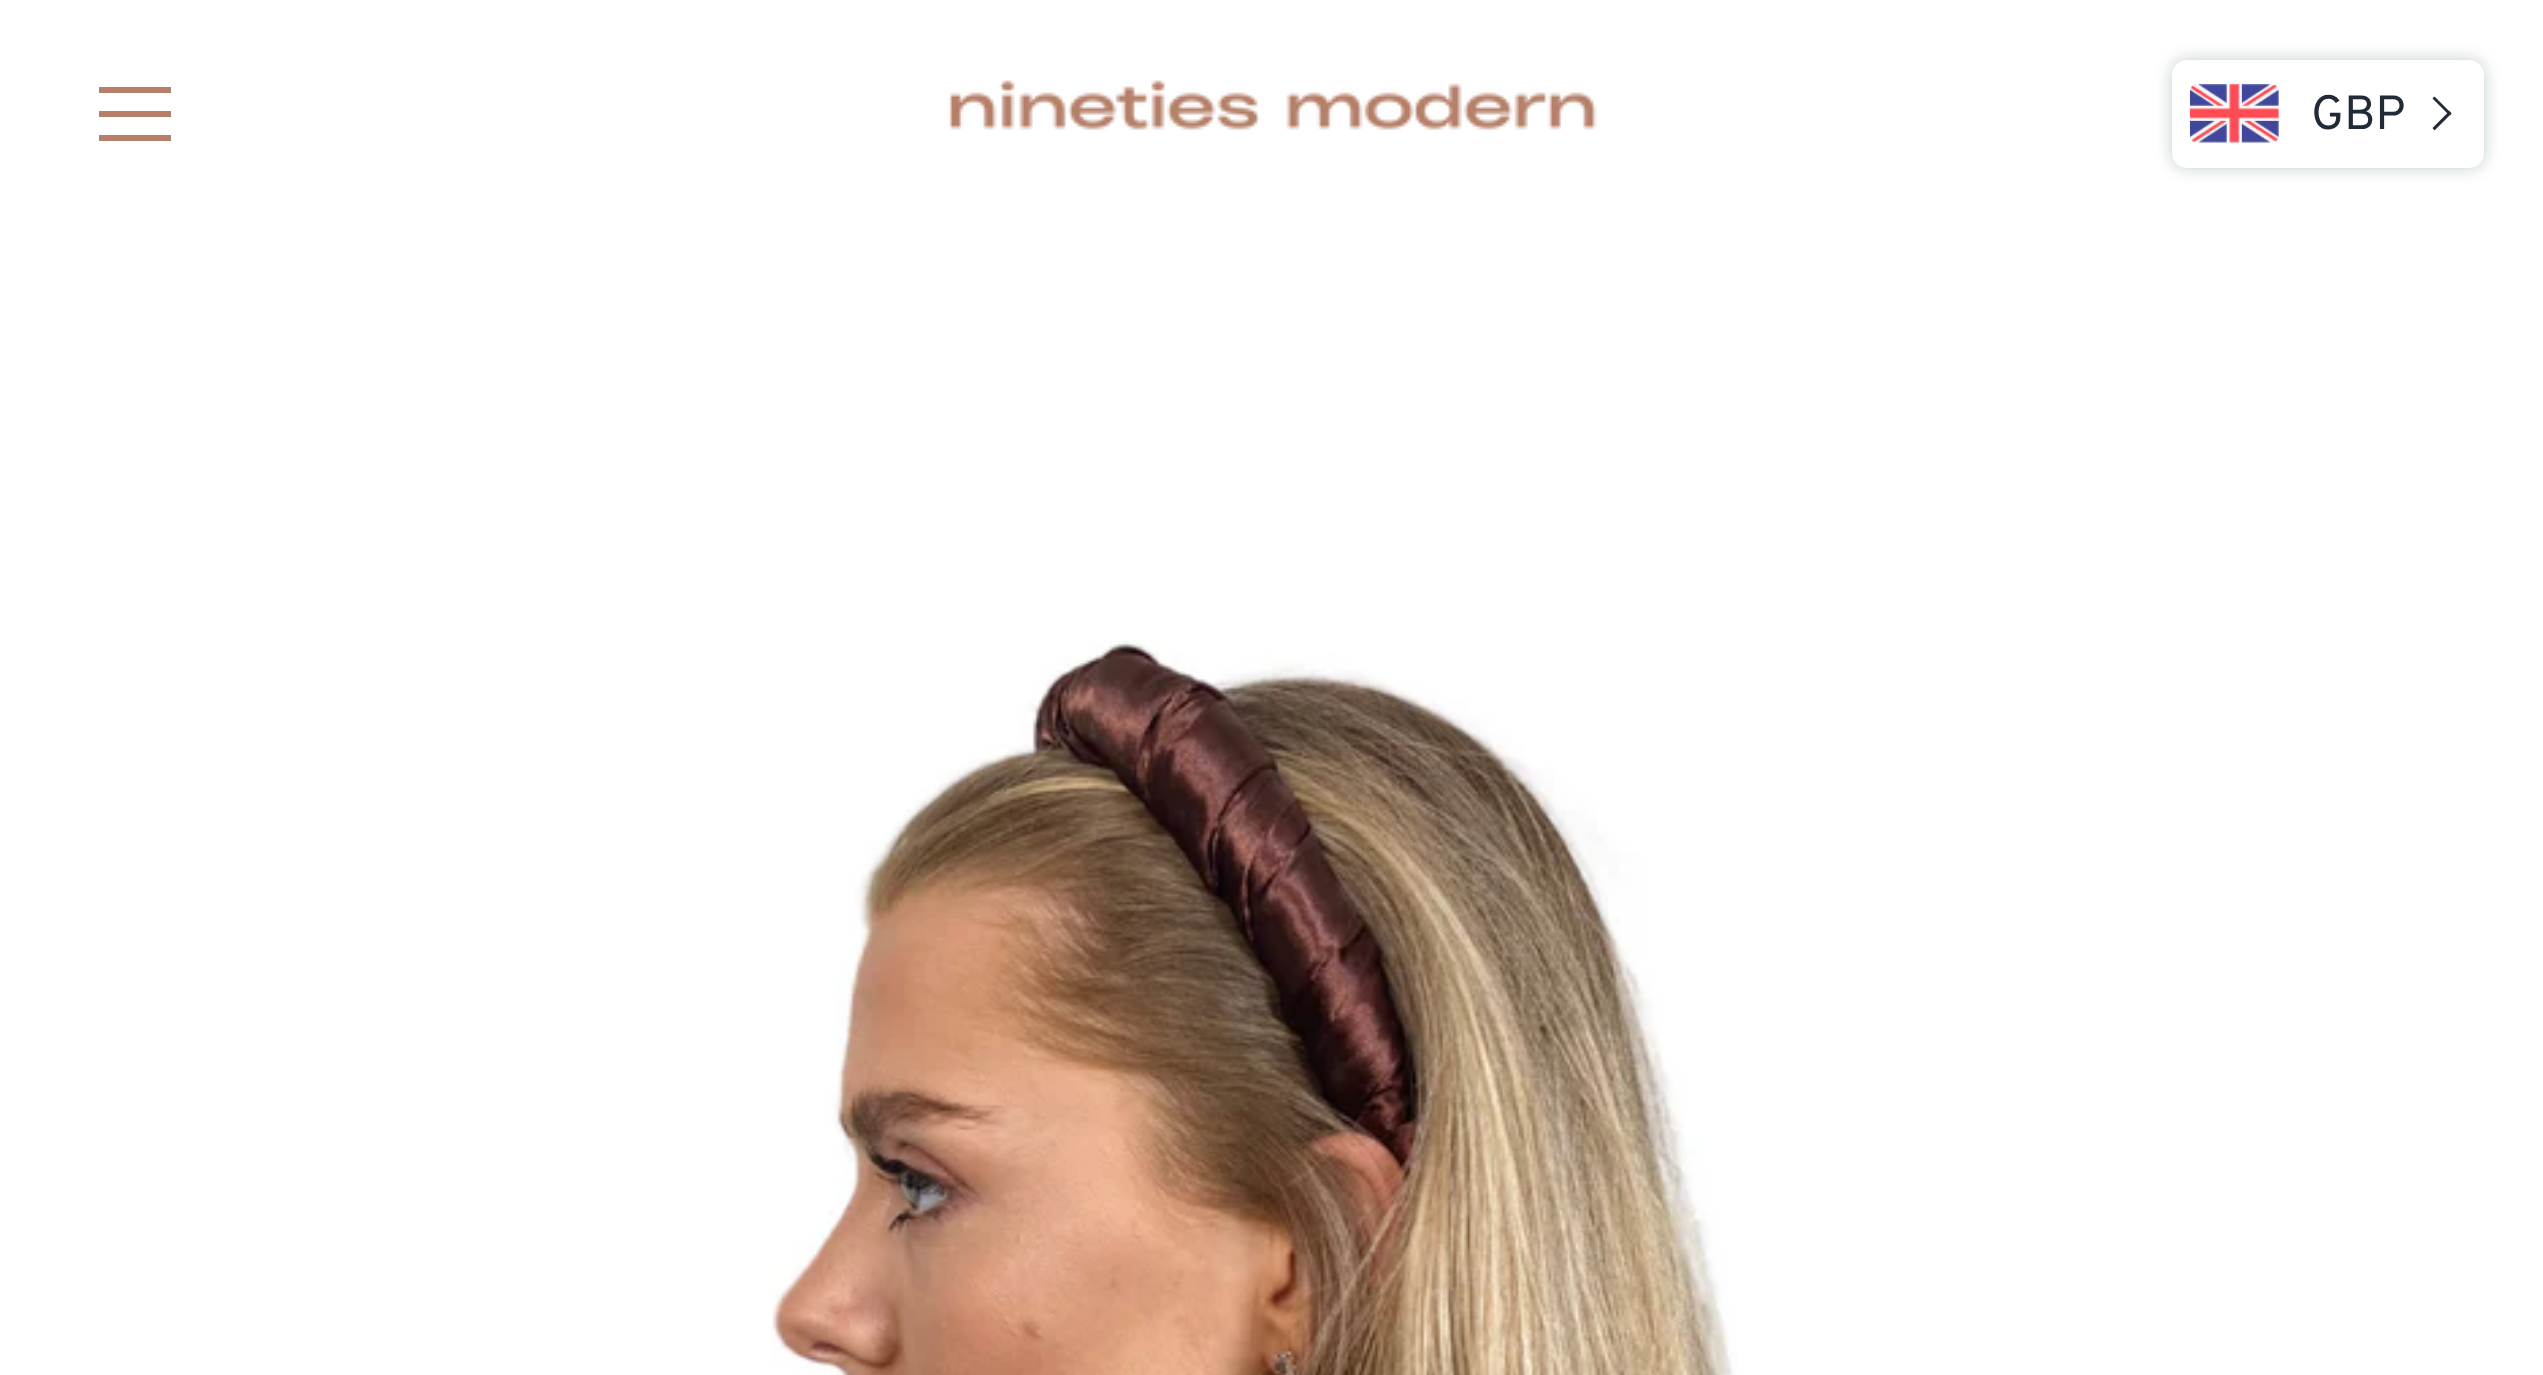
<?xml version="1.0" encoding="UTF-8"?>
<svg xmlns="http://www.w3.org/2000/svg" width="2543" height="1375">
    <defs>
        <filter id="blur1" x="-50%" y="-200%" width="200%" height="500%"><feGaussianBlur stdDeviation="7.5"/></filter>
    </defs>
    <rect width="100%" height="100%" fill="#FFFFFF"/>
    <rect x="99" y="87" width="72" height="6" fill="#B57F68"/>
    <rect x="99" y="111" width="72" height="6" fill="#B57F68"/>
    <rect x="99" y="135" width="72" height="6" fill="#B57F68"/>
    <image x="948" y="80" width="649" height="50" href="img_01.png"/>
    <rect x="2172" y="60" width="312" height="108" rx="15" fill="#212B36" fill-opacity="0.25" filter="url(#blur1)"/>
    <rect x="2172" y="60" width="312" height="108" rx="15" fill="#FFFFFF"/>
    <image x="2190" y="84" width="89" height="59" href="img_02.png"/>
    <text x="2311" y="129" font-family="Overpass" font-size="48" fill="#212B36">GBP</text>
    <path d="M 2432.5 98.5 L 2434.5 96.5 L 2451.5 113.5 L 2449.5 115.5 Z" fill="#212B36"/>
    <path d="M 2432.5 128 L 2449.5 111 L 2451.5 113.5 L 2434.5 130.5 Z" fill="#212B36"/>
    <image x="771" y="640" width="966" height="735" href="img_03.png"/>
</svg>
